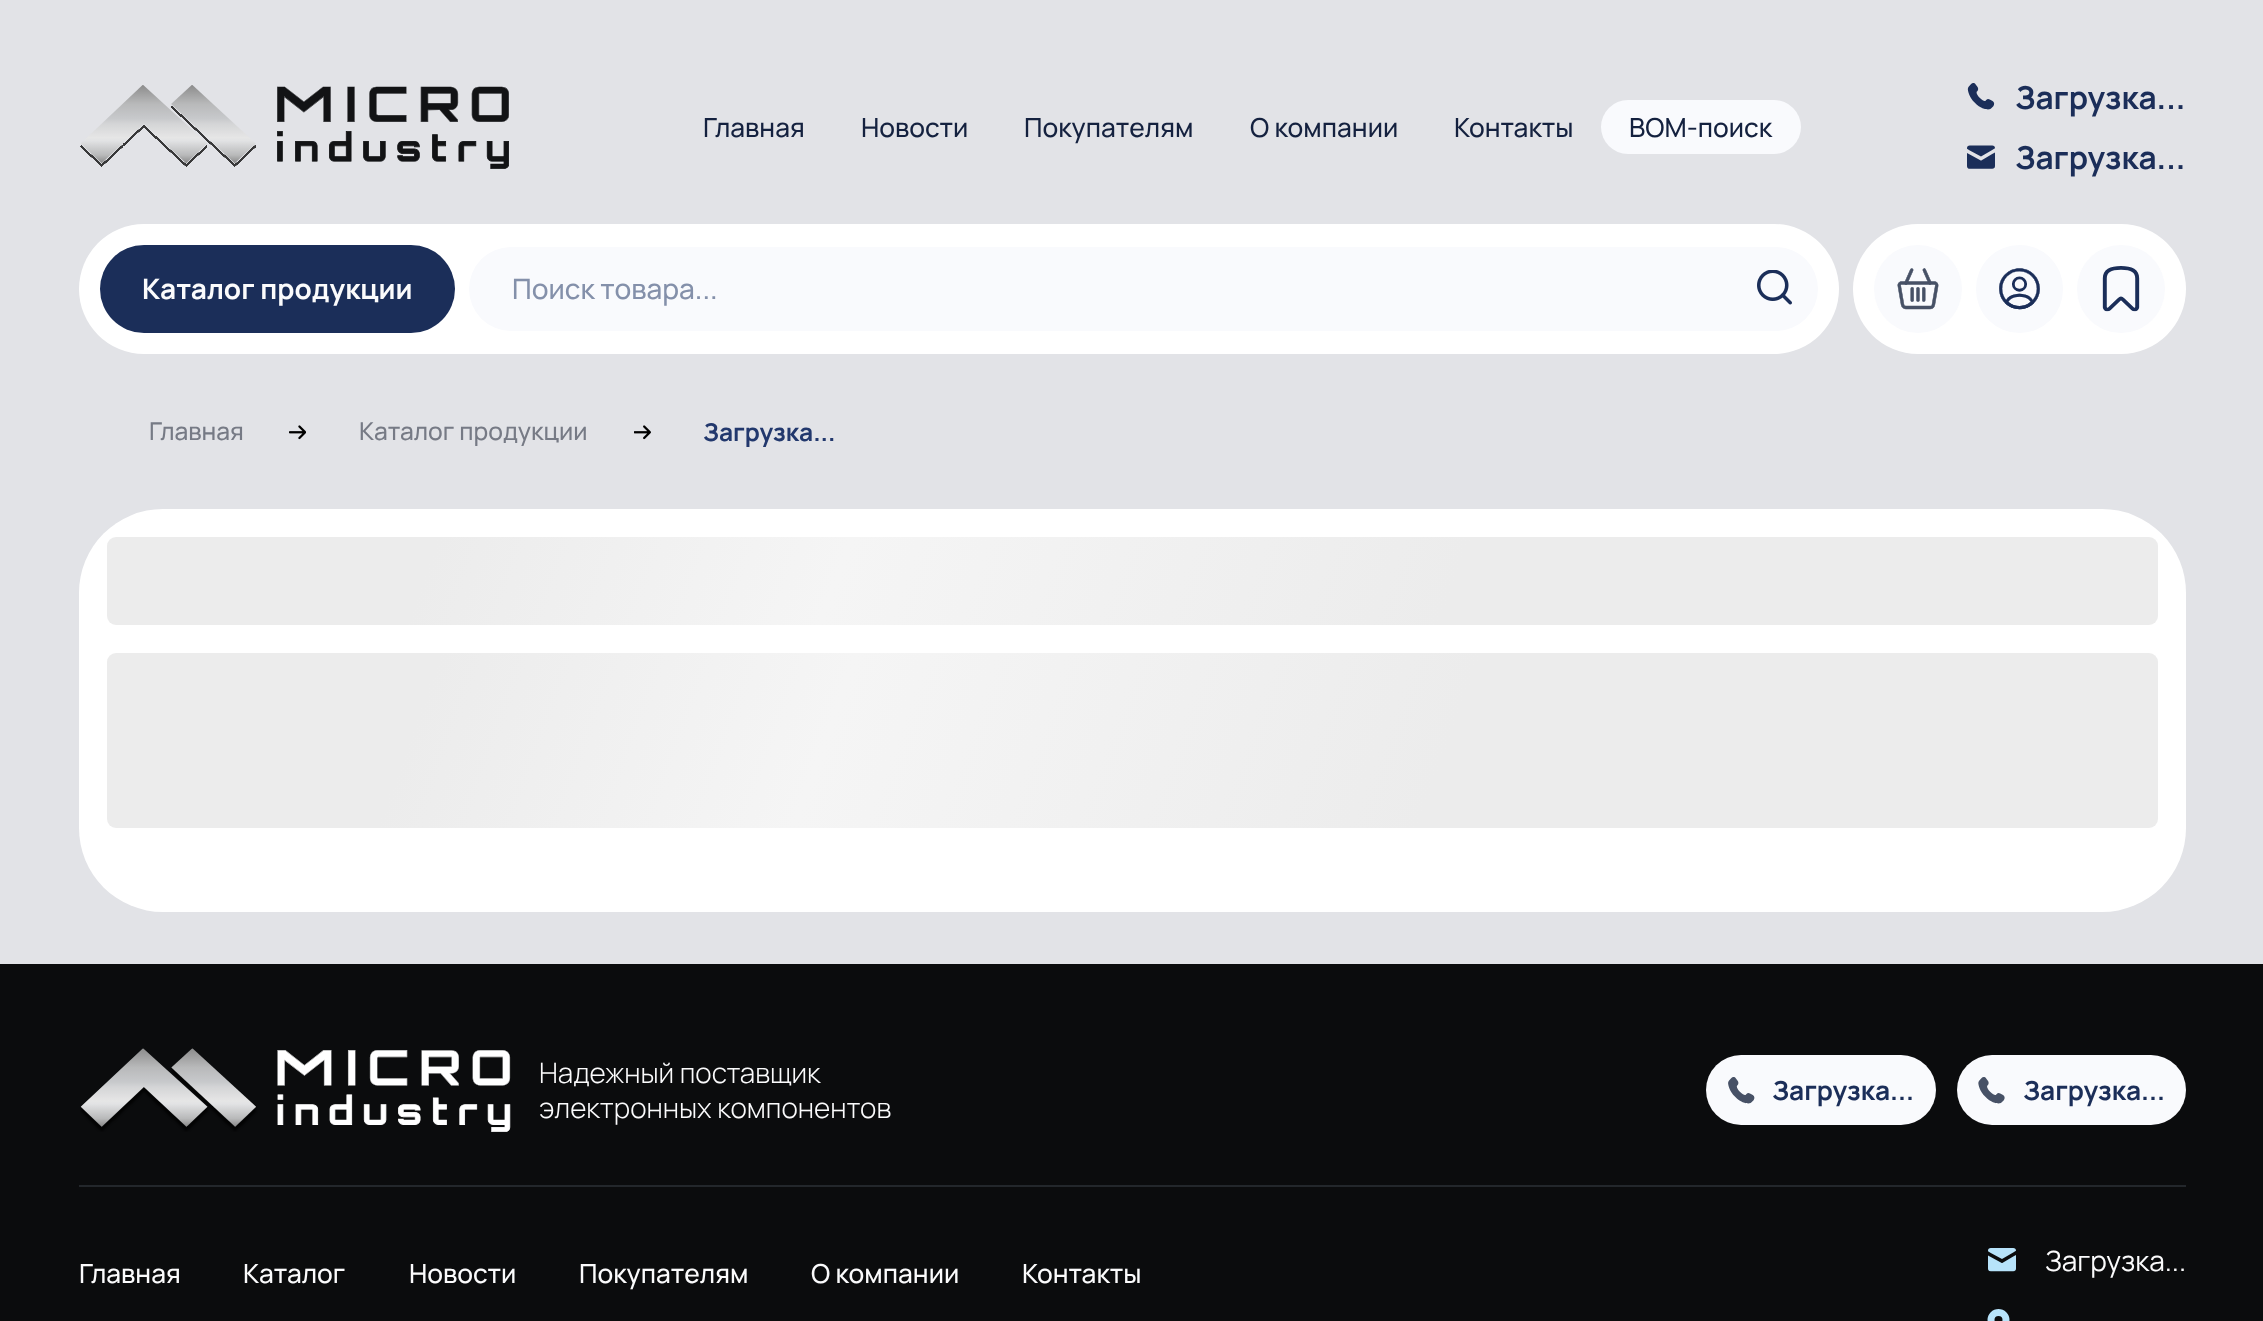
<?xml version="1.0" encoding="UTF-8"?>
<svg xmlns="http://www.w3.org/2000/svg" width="2263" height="1321">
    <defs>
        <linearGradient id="g1" gradientUnits="userSpaceOnUse" x1="333" y1="-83" x2="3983" y2="1245"><stop offset="0.08" stop-color="#ECECEC"/><stop offset="0.18" stop-color="#F5F5F5"/><stop offset="0.33" stop-color="#ECECEC"/></linearGradient>
        <linearGradient id="g2" gradientUnits="userSpaceOnUse" x1="319" y1="71" x2="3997" y2="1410"><stop offset="0.08" stop-color="#ECECEC"/><stop offset="0.18" stop-color="#F5F5F5"/><stop offset="0.33" stop-color="#ECECEC"/></linearGradient>
    </defs>
    <rect width="100%" height="100%" fill="#E2E3E7"/>
    <image x="80" y="85" width="429" height="84" href="img_01.png"/>
    <text x="703" y="137" font-family="Manrope" font-size="26.25" font-weight="500" fill="#14213F">Главная</text>
    <text x="861" y="137" font-family="Manrope" font-size="26.25" font-weight="500" fill="#14213F">Новости</text>
    <text x="1024" y="137" font-family="Manrope" font-size="26.25" font-weight="500" fill="#14213F">Покупателям</text>
    <text x="1250" y="137" font-family="Manrope" font-size="26.25" font-weight="500" fill="#14213F">О компании</text>
    <text x="1454" y="137" font-family="Manrope" font-size="26.25" font-weight="500" fill="#14213F">Контакты</text>
    <rect x="1601" y="100" width="200" height="54" rx="27" fill="#F9FAFD"/>
    <text x="1629" y="137" font-family="Manrope" font-size="26.25" font-weight="500" fill="#14213F">BOM-поиск</text>
    <image x="1967" y="83" width="28" height="27" href="img_02.png"/>
    <text x="2015" y="109" font-family="Manrope" font-size="31.5" font-weight="700" fill="#1B2E59">Загрузка...</text>
    <image x="1967" y="145" width="28" height="24" href="img_03.png"/>
    <text x="2015" y="169" font-family="Manrope" font-size="31.5" font-weight="700" fill="#1B2E59">Загрузка...</text>
    <rect x="79" y="224" width="1760" height="130" rx="65" fill="#FFFFFF"/>
    <rect x="100" y="245" width="355" height="88" rx="44" fill="#1B2E59"/>
    <text x="142" y="299" font-family="Manrope" font-size="28" font-weight="700" fill="#FBFBFC">Каталог продукции</text>
    <rect x="469" y="247" width="1349" height="84" rx="42" fill="#F9FAFD"/>
    <text x="512" y="299" font-family="Manrope" font-size="28" font-weight="500" fill="#8490AA">Поиск товара...</text>
    <image x="1757" y="270" width="35" height="35" href="img_04.png"/>
    <rect x="1853" y="224" width="333" height="130" rx="65" fill="#FFFFFF"/>
    <circle cx="1918" cy="289" r="44" fill="#F9FAFD"/>
    <image x="1897" y="268" width="42" height="42" href="img_05.png"/>
    <rect x="1976" y="245" width="87" height="88" rx="43.5" fill="#F9FAFD"/>
    <image x="1999" y="268" width="41" height="42" href="img_06.png"/>
    <circle cx="2121" cy="289" r="44" fill="#F9FAFD"/>
    <image x="2102" y="266" width="38" height="46" href="img_07.png"/>
    <text x="149" y="440" font-family="Manrope" font-size="24.5" font-weight="500" fill="#767A85">Главная</text>
    <image x="289" y="425" width="17" height="15" href="img_08.png"/>
    <text x="359" y="440" font-family="Manrope" font-size="24.5" font-weight="500" fill="#767A85">Каталог продукции</text>
    <image x="634" y="425" width="17" height="15" href="img_09.png"/>
    <text x="703" y="441" font-family="Manrope" font-size="24.5" font-weight="700" fill="#22386D">Загрузка...</text>
    <rect x="79" y="509" width="2107" height="403" rx="84" fill="#FFFFFF"/>
    <rect x="107" y="537" width="2051" height="88" rx="9" fill="url(#g1)"/>
    <rect x="107" y="653" width="2051" height="175" rx="9" fill="url(#g2)"/>
    <rect x="0" y="964" width="2263" height="357" fill="#0B0C0D"/>
    <rect x="79" y="1185" width="2107" height="2" fill="#23272B"/>
    <image x="80" y="1048" width="431" height="84" href="img_10.png"/>
    <text font-family="Manrope" font-size="28" font-weight="300" fill="#FBFBFC">
        <tspan x="539" y="1083">Надежный поставщик</tspan>
        <tspan x="539" y="1118">электронных компонентов</tspan>
    </text>
    <rect x="1706" y="1055" width="230" height="70" rx="35" fill="#F9FAFD"/>
    <image x="1728" y="1077" width="27" height="27" href="img_11.png"/>
    <text x="1772" y="1100" font-family="Manrope" font-size="26.25" font-weight="700" fill="#1B2E59">Загрузка...</text>
    <rect x="1957" y="1055" width="229" height="70" rx="35" fill="#F9FAFD"/>
    <image x="1978" y="1077" width="27" height="27" href="img_12.png"/>
    <text x="2023" y="1100" font-family="Manrope" font-size="26.25" font-weight="700" fill="#1B2E59">Загрузка...</text>
    <text x="79" y="1283" font-family="Manrope" font-size="26.25" font-weight="500" fill="#FBFBFC">Главная</text>
    <text x="243" y="1283" font-family="Manrope" font-size="26.25" font-weight="500" fill="#FBFBFC">Каталог</text>
    <text x="409" y="1283" font-family="Manrope" font-size="26.25" font-weight="500" fill="#FBFBFC">Новости</text>
    <text x="579" y="1283" font-family="Manrope" font-size="26.25" font-weight="500" fill="#FBFBFC">Покупателям</text>
    <text x="811" y="1283" font-family="Manrope" font-size="26.25" font-weight="500" fill="#FBFBFC">О компании</text>
    <text x="1022" y="1283" font-family="Manrope" font-size="26.25" font-weight="500" fill="#FBFBFC">Контакты</text>
    <image x="1988" y="1248" width="28" height="24" href="img_13.png"/>
    <text x="2045" y="1271" font-family="Manrope" font-size="28" fill="#FBFBFC">Загрузка...</text>
    <image x="1987" y="1309" width="23" height="12" href="img_14.png"/>
</svg>
